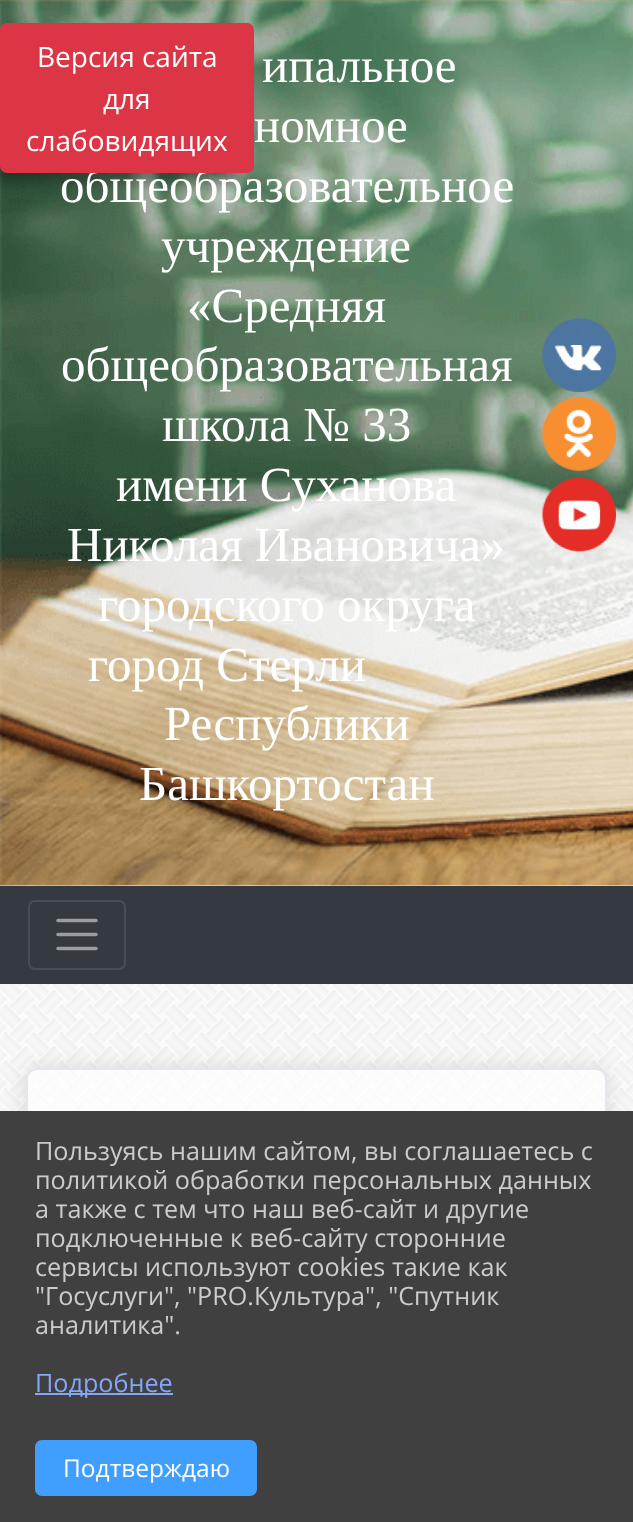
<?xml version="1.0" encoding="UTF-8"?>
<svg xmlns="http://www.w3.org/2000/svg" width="633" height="1522">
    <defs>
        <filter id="blur1" x="-50%" y="-200%" width="200%" height="500%"><feGaussianBlur stdDeviation="7"/></filter>
        <clipPath id="clip1"><path d="M 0 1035 H 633 V 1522 H 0 Z M 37 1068 H 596 C 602 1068 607 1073 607 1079 V 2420 C 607 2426 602 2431 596 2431 H 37 C 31 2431 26 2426 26 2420 V 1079 C 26 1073 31 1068 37 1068 Z" clip-rule="evenodd"/></clipPath>
        <filter id="blur2" x="-50%" y="-200%" width="200%" height="500%"><feGaussianBlur stdDeviation="10.5"/></filter>
    </defs>
    <rect width="100%" height="100%" fill="#FFFFFF"/>
    <image x="0" y="885" width="633" height="226" href="img_01.png"/>
    <image x="0" y="0" width="633" height="886" href="img_02.png"/>
    <rect x="-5" y="35" width="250" height="147" rx="5" fill="#000000" fill-opacity="0.35" filter="url(#blur1)"/>
    <text x="60" y="202" font-family="Liberation Serif" font-size="49" fill="#FFFFFF">общеобразовательное</text>
    <rect x="1" y="24" width="252" height="148" rx="6" fill="#DC3545" stroke="#DC3545" stroke-width="2"/>
    <text x="37" y="67" font-family="Open Sans" font-size="28" fill="#FFFFFF">Версия сайта</text>
    <text x="103" y="109" font-family="Open Sans" font-size="28" fill="#FFFFFF">для</text>
    <text x="26" y="151" font-family="Open Sans" font-size="28" fill="#FFFFFF">слабовидящих</text>
    <text x="262" y="82" font-family="Liberation Serif" font-size="49" fill="#FFFFFF">ипальное</text>
    <text x="254" y="142" font-family="Liberation Serif" font-size="49" fill="#FFFFFF">номное</text>
    <text x="161" y="262" font-family="Liberation Serif" font-size="49" fill="#FFFFFF">учреждение</text>
    <text x="187" y="322" font-family="Liberation Serif" font-size="49" fill="#FFFFFF">«Средняя</text>
    <text x="61" y="381" font-family="Liberation Serif" font-size="49" fill="#FFFFFF">общеобразовательная</text>
    <text x="162" y="441" font-family="Liberation Serif" font-size="49" fill="#FFFFFF">школа № 33</text>
    <text x="116" y="501" font-family="Liberation Serif" font-size="49" fill="#FFFFFF">имени Суханова</text>
    <text x="67" y="561" font-family="Liberation Serif" font-size="49" fill="#FFFFFF">Николая Ивановича»</text>
    <text x="98" y="621" font-family="Liberation Serif" font-size="49" fill="#FFFFFF">городского округа</text>
    <text x="88" y="681" font-family="Liberation Serif" font-size="49" fill="#FFFFFF">город Стерли</text>
    <text x="164" y="740" font-family="Liberation Serif" font-size="49" fill="#FFFFFF">Республики</text>
    <text x="139" y="800" font-family="Liberation Serif" font-size="49" fill="#FFFFFF">Башкортостан</text>
    <image x="542" y="318" width="74" height="74" href="img_03.png"/>
    <image x="542" y="397" width="74" height="74" href="img_04.png"/>
    <image x="542" y="477" width="74" height="75" href="img_05.png"/>
    <rect x="0" y="886" width="633" height="98" fill="#343A40"/>
    <rect x="29" y="901" width="96" height="68" rx="6" fill="none" stroke="#484E53" stroke-width="2"/>
    <path d="M 58 920.5 H 96 M 58 934.5 H 96 M 58 948.5 H 96" fill="none" stroke="#9A9DA0" stroke-width="3.5" stroke-linecap="round"/>
    <g clip-path="url(#clip1)">
        <rect x="26" y="1068" width="581" height="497" rx="11" fill="#000000" fill-opacity="0.12" filter="url(#blur2)"/>
    </g>
    <rect x="27" y="1069" width="579" height="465" rx="10" fill="#FFFFFF" fill-opacity="0.68" stroke="#E4E7ED" stroke-width="2"/>
    <rect x="0" y="1111" width="633" height="411" fill="#404040"/>
    <text font-family="Open Sans" font-size="25.2" fill="#CCCCCC">
        <tspan x="35" y="1160">Пользуясь нашим сайтом, вы соглашаетесь с</tspan>
        <tspan x="35" y="1189">политикой обработки персональных данных</tspan>
        <tspan x="35" y="1218">а также с тем что наш веб-сайт и другие</tspan>
        <tspan x="35" y="1247">подключенные к веб-сайту сторонние</tspan>
        <tspan x="35" y="1276">сервисы используют cookies такие как</tspan>
        <tspan x="35" y="1305">"Госуслуги", "PRO.Культура", "Спутник</tspan>
        <tspan x="35" y="1334">аналитика".</tspan>
    </text>
    <rect x="35" y="1393" width="138" height="2" fill="#85A6F9"/>
    <text x="35" y="1392" font-family="Open Sans" font-size="25.2" fill="#85A6F9">Подробнее</text>
    <rect x="36" y="1441" width="220" height="54" rx="6" fill="#409EFF" stroke="#409EFF" stroke-width="2"/>
    <text x="63" y="1477" font-family="Open Sans" font-size="24.5" fill="#FFFFFF">Подтверждаю</text>
</svg>
